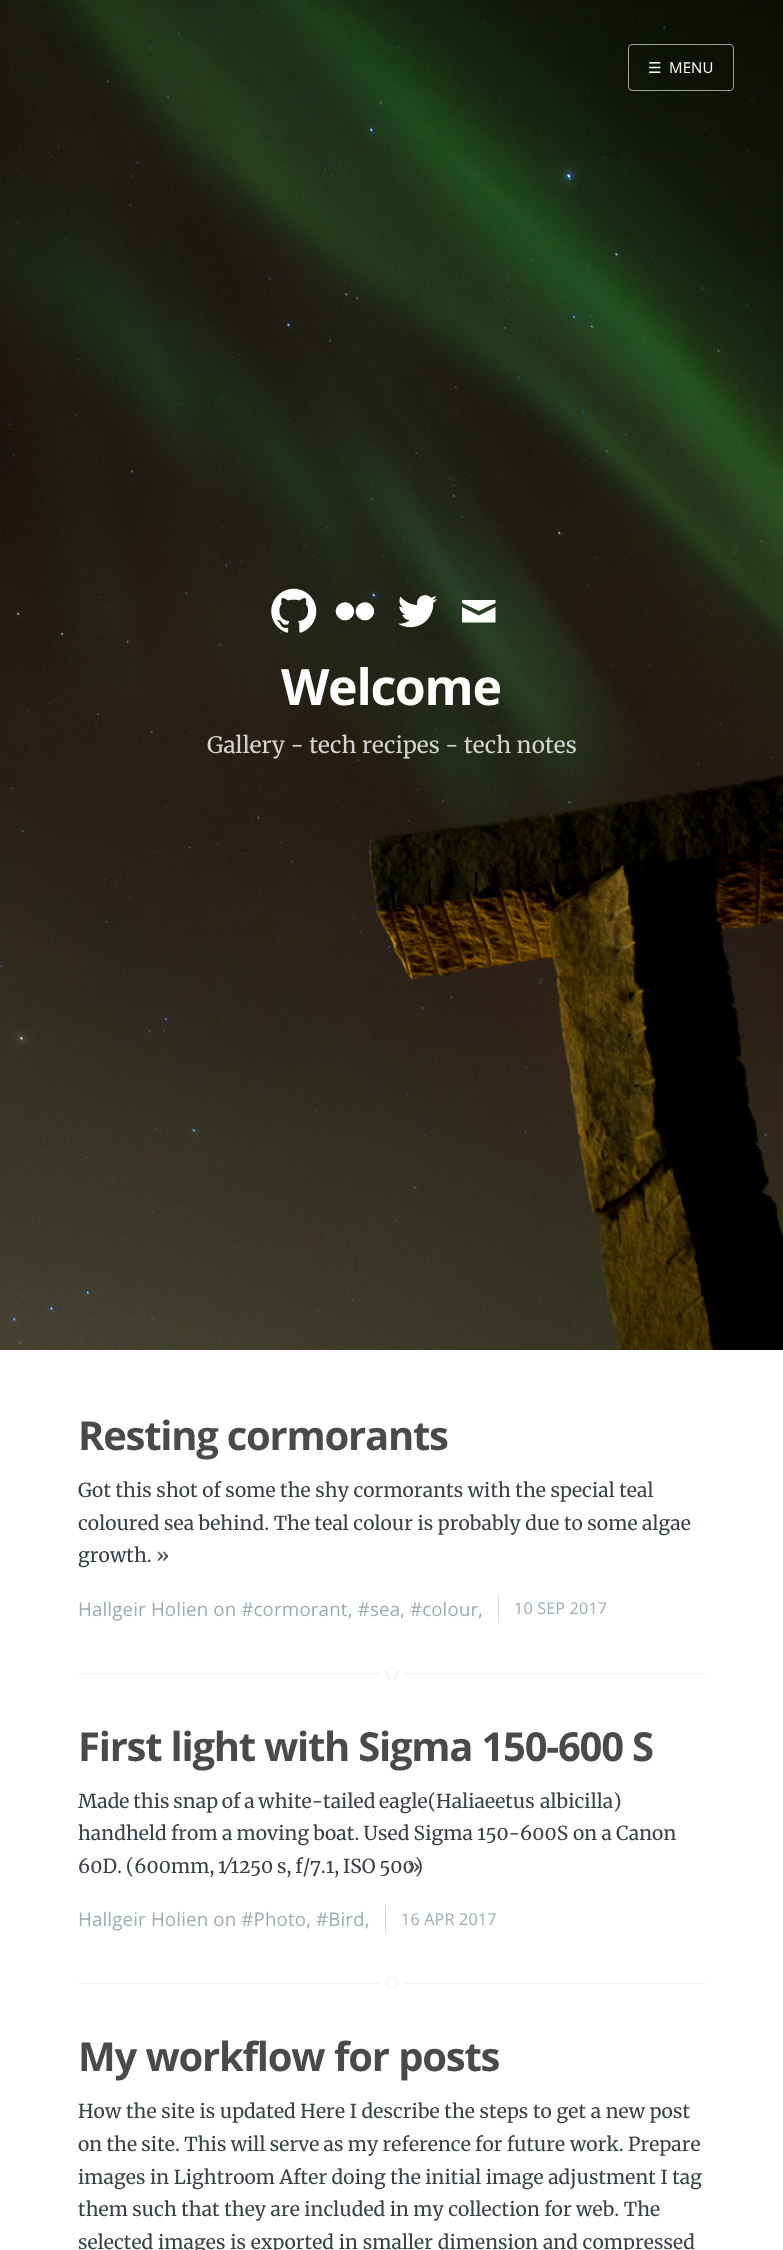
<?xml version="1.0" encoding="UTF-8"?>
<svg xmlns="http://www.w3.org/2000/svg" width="783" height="2250">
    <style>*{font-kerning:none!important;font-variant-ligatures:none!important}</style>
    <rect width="100%" height="100%" fill="#FFFFFF"/>
    <image x="0" y="0" width="783" height="1350" href="img_01.png"/>
    <rect x="628.5" y="44.5" width="105" height="46" rx="3.5" fill="none" stroke="#FFFFFF" stroke-opacity="0.6"/>
    <text x="648" y="73" font-family="DejaVu Sans" font-size="15" letter-spacing="0.12" fill="#FFFFFF">☰</text>
    <text x="669" y="73" font-family="Open Sans" font-size="15" letter-spacing="0.12" fill="#FFFFFF">MENU</text>
    <image x="271" y="588" width="46" height="45" href="img_02.png"/>
    <path d="M 358.5 605 C 367 596.5 380 609 371.5 617.5 C 363 626 350 613.5 358.5 605 Z M 338.5 605 C 347 596.5 360 609 351.5 617.5 C 343 626 330 613.5 338.5 605 Z" fill="#FFFFFF"/>
    <image x="398" y="595" width="39" height="33" href="img_03.png"/>
    <path d="M 462 600 H 495.5 V 603 L 479 611 L 462 603 Z M 462 607 L 479 615.5 L 495.5 607 V 622.5 H 462 Z" fill="#FFFFFF"/>
    <text x="281" y="705" font-family="Open Sans" font-size="50" font-weight="700" letter-spacing="-1.25" fill="#FFFFFF">Welcome</text>
    <text x="207" y="753" font-family="Merriweather" font-size="22.5" letter-spacing="0.12" fill="#D3D3D1">Gallery - tech recipes - tech notes</text>
    <rect x="79" y="1673" width="626" height="1" fill="#EBF2F6"/>
    <text x="78" y="1450" font-family="Open Sans" font-size="40" font-weight="700" letter-spacing="-1.25" fill="#4A4A4A">Resting cormorants</text>
    <text font-family="Merriweather" font-size="19.25" letter-spacing="0.12" fill="#3A4145">
        <tspan x="78" y="1497" word-spacing="-0.25">Got this shot of some the shy cormorants with the special teal</tspan>
        <tspan x="78" y="1530" word-spacing="-0.25">coloured sea behind. The teal colour is probably due to some algae</tspan>
        <tspan x="78" y="1562">growth.</tspan>
    </text>
    <text x="156" y="1562" font-family="Merriweather" font-size="19.25" letter-spacing="0.12" fill="#4A4A4A">»</text>
    <text x="78" y="1616" font-family="Open Sans" font-size="18.75" letter-spacing="0.12" fill="#9EABB3">Hallgeir Holien on #cormorant</text>
    <text x="348" y="1616" font-family="Open Sans" font-size="18.75" letter-spacing="0.12" fill="#9EABB3">, #sea, #colour,</text>
    <rect x="498" y="1595" width="1" height="28" fill="#D5DBDE"/>
    <text x="514" y="1614" font-family="Open Sans" font-size="16.25" letter-spacing="0.12" fill="#9EABB3">10 SEP 2017</text>
    <circle cx="392" cy="1673" r="9" fill="none" stroke="#FFFFFF" stroke-width="6"/>
    <rect x="386.5" y="1668.5" width="11" height="10" rx="5" fill="#FFFFFF" stroke="#E7EEF2"/>
    <rect x="79" y="1983" width="626" height="1" fill="#EBF2F6"/>
    <text x="78" y="1761" font-family="Open Sans" font-size="40" font-weight="700" letter-spacing="-1.25" fill="#4A4A4A">First light with Sigma 150-600 S</text>
    <text x="78" y="1808" word-spacing="-1" font-family="Merriweather" font-size="19.25" letter-spacing="0.12" fill="#3A4145">Made this snap of a white-tailed eagle(Haliaeetus</text>
    <text x="540" y="1808" word-spacing="-1" font-family="Merriweather" font-size="19.25" letter-spacing="0.12" fill="#3A4145">albicilla)</text>
    <text x="78" y="1840" word-spacing="-0.5" font-family="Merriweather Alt" font-size="19.25" letter-spacing="0.12" fill="#3A4145">handheld from a moving boat. Used Sigma 150-600S</text>
    <text x="573" y="1840" word-spacing="-0.5" font-family="Merriweather Alt" font-size="19.25" letter-spacing="0.12" fill="#3A4145">on a Canon</text>
    <text x="78" y="1873" word-spacing="-1" font-family="Merriweather Alt" font-size="19.25" letter-spacing="0.12" fill="#3A4145">60D. (600mm,</text>
    <text x="218" y="1873" word-spacing="-1" font-family="Merriweather Alt" font-size="19.25" letter-spacing="0.12" fill="#3A4145">1⁄1250 s, f/7.1, ISO 500)</text>
    <text x="407" y="1873" font-family="Merriweather" font-size="19.25" letter-spacing="0.12" fill="#4A4A4A">»</text>
    <text x="78" y="1926" font-family="Open Sans" font-size="18.75" letter-spacing="0.12" fill="#9EABB3">Hallgeir Holien on #Photo, #Bird</text>
    <text x="365" y="1926" font-family="Open Sans" font-size="18.75" letter-spacing="0.12" fill="#9EABB3">,</text>
    <rect x="385" y="1905" width="1" height="28" fill="#D5DBDE"/>
    <text x="401" y="1925" font-family="Open Sans" font-size="16.25" letter-spacing="0.12" fill="#9EABB3">16 APR 2017</text>
    <circle cx="392" cy="1983" r="9" fill="none" stroke="#FFFFFF" stroke-width="6"/>
    <rect x="386.5" y="1978.5" width="11" height="10" rx="5" fill="#FFFFFF" stroke="#E7EEF2"/>
    <text x="78" y="2071" word-spacing="0.5" font-family="Open Sans" font-size="40" font-weight="700" letter-spacing="-1.25" fill="#4A4A4A">My workflow for posts</text>
    <text font-family="Merriweather" font-size="19.25" letter-spacing="0.12" fill="#3A4145">
        <tspan x="78" y="2118" word-spacing="-0.1">How the site is updated Here I describe the steps to get a new post</tspan>
        <tspan x="78" y="2151" word-spacing="-0.5">on the site. This will serve as my reference for future</tspan>
    </text>
    <text x="570" y="2151" word-spacing="-0.5" font-family="Merriweather" font-size="19.25" letter-spacing="0.12" fill="#3A4145">work. Prepare</text>
    <text font-family="Merriweather" font-size="19.25" letter-spacing="0.12" fill="#3A4145">
        <tspan x="78" y="2184" word-spacing="-0.25">images in Lightroom After doing the initial image adjustment I tag</tspan>
        <tspan x="78" y="2216" word-spacing="-0.3">them such that they are included in my collection for web. The</tspan>
        <tspan x="78" y="2249">selected images is exported in smaller dimension and compressed</tspan>
    </text>
</svg>
